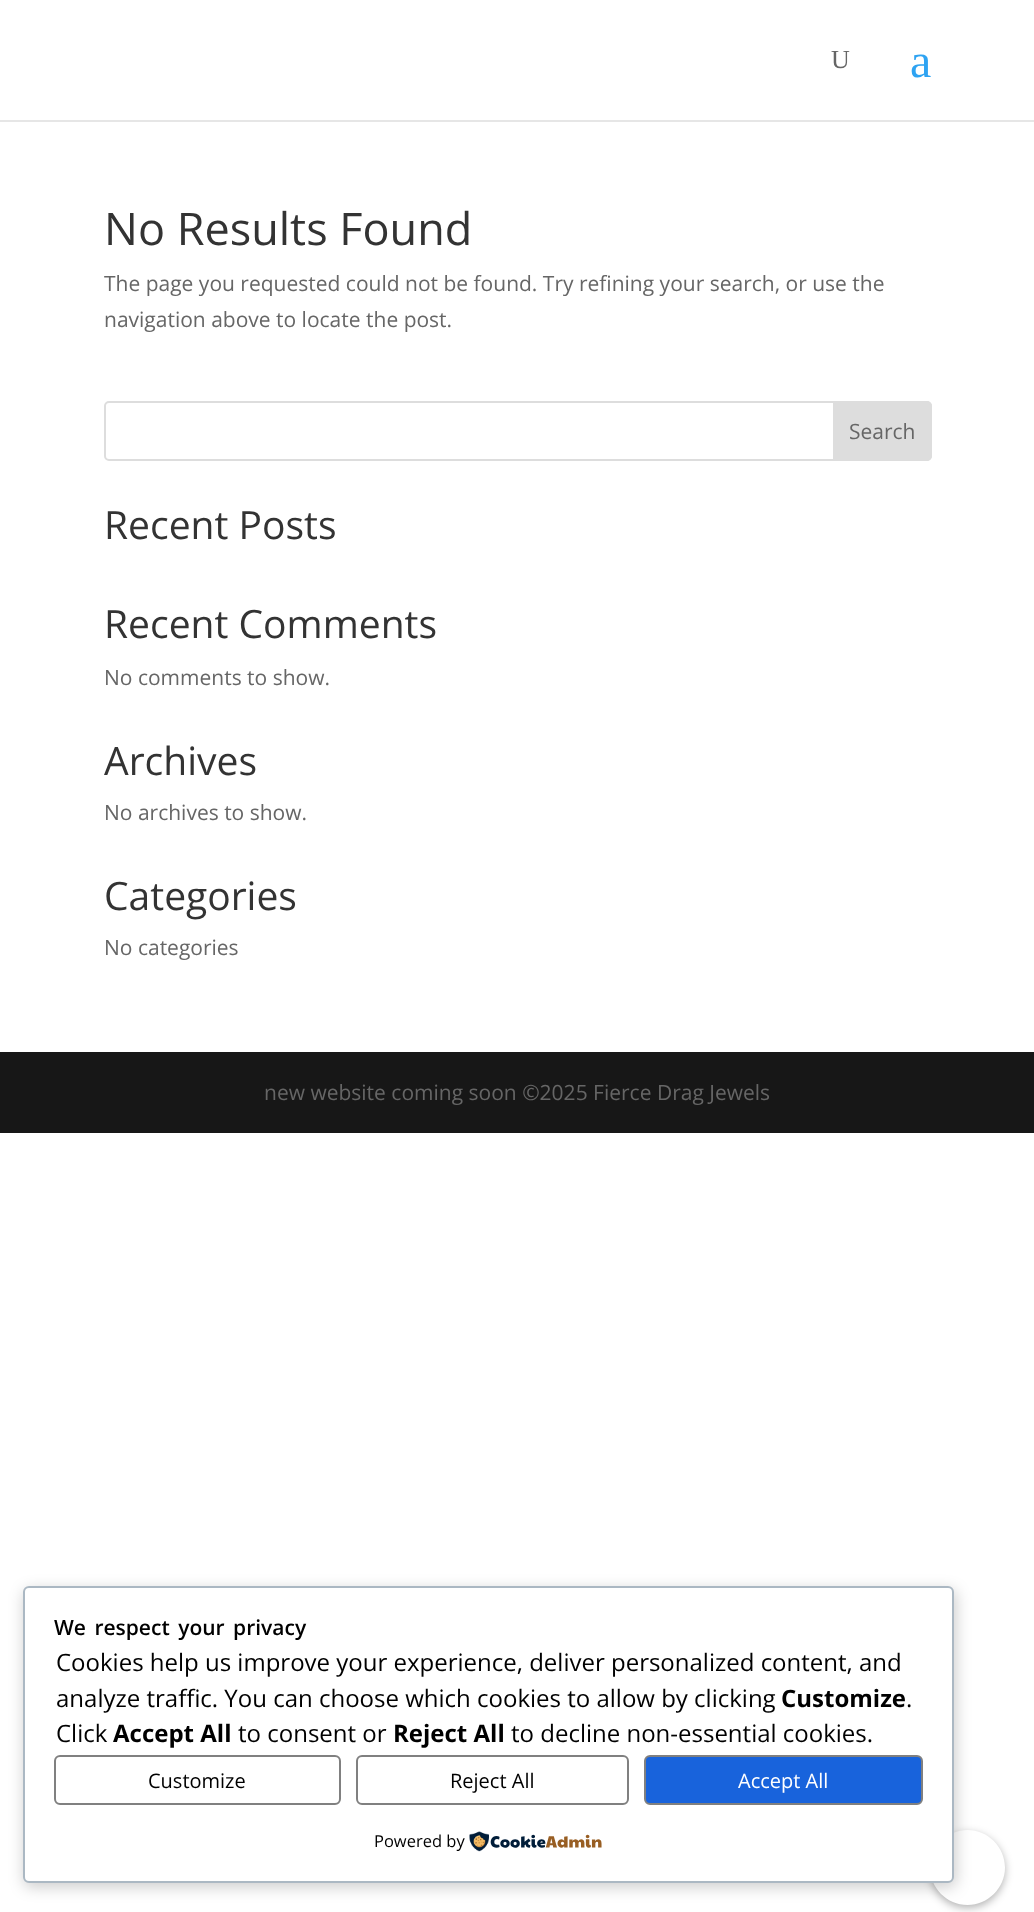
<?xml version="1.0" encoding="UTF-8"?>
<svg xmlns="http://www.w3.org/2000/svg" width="1034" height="1912">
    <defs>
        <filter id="blur1" x="-50%" y="-200%" width="200%" height="500%"><feGaussianBlur stdDeviation="7.5"/></filter>
        <clipPath id="clip1"><path d="M 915 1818 H 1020 V 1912 H 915 Z M 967.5 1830 C 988 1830 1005 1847 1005 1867.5 C 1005 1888 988 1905 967.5 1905 C 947 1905 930 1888 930 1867.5 C 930 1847 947 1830 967.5 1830 Z" clip-rule="evenodd"/></clipPath>
        <filter id="blur2" x="-50%" y="-200%" width="200%" height="500%"><feGaussianBlur stdDeviation="4.5"/></filter>
    </defs>
    <rect width="100%" height="100%" fill="#FFFFFF"/>
    <rect x="0" y="120" width="1034" height="2" fill="#E6E6E6"/>
    <text x="831" y="68" font-family="Liberation Serif" font-size="26" fill="#666666">U</text>
    <text x="910" y="77" font-family="Liberation Serif" font-size="48" fill="#2EA3F2">a</text>
    <text x="104" y="245" font-family="Open Sans" font-size="45" fill="#333333">No Results Found</text>
    <text font-family="Open Sans" font-size="21" fill="#666666">
        <tspan x="104" y="291">The page you requested could not be found. Try refining your search, or use the</tspan>
        <tspan x="104" y="327">navigation above to locate the post.</tspan>
    </text>
    <rect x="105" y="402" width="826" height="58" rx="4" fill="none" stroke="#DDDDDD" stroke-width="2"/>
    <path d="M 834 402 H 927 C 929 402 931 404 931 406 V 456 C 931 458 929 460 927 460 H 834 Z" fill="#DDDDDD" stroke="#DDDDDD" stroke-width="2"/>
    <text x="849" y="439" font-family="Open Sans" font-size="21" fill="#666666">Search</text>
    <text x="104" y="539" font-family="Open Sans" font-size="39" fill="#333333">Recent Posts</text>
    <text x="104" y="638" font-family="Open Sans" font-size="39" fill="#333333">Recent Comments</text>
    <text x="104" y="685" font-family="Open Sans" font-size="21" fill="#666666">No comments to show.</text>
    <text x="104" y="775" font-family="Open Sans" font-size="39" fill="#333333">Archives</text>
    <text x="104" y="820" font-family="Open Sans" font-size="21" fill="#666666">No archives to show.</text>
    <text x="104" y="910" font-family="Open Sans" font-size="39" fill="#333333">Categories</text>
    <text x="104" y="955" font-family="Open Sans" font-size="21" fill="#666666">No categories</text>
    <rect x="0" y="1052" width="1034" height="81" fill="#171717"/>
    <text x="264" y="1100" font-family="Open Sans" font-size="21" fill="#666666">new website coming soon ©2025 Fierce Drag Jewels</text>
    <rect x="24" y="1590" width="932" height="297" rx="6" fill="#000000" fill-opacity="0.2" filter="url(#blur1)"/>
    <g clip-path="url(#clip1)">
        <rect x="930" y="1833" width="75" height="75" rx="37.5" fill="#000000" fill-opacity="0.3" filter="url(#blur2)"/>
    </g>
    <rect x="24" y="1587" width="929" height="295" rx="5" fill="#FFFFFF" stroke="#ABB8C3" stroke-width="2"/>
    <text x="54" y="1635" word-spacing="3" font-family="Open Sans" font-size="21" font-weight="600" fill="#000000">We respect your privacy</text>
    <text font-family="Open Sans" font-size="24" fill="#000000">
        <tspan x="56" y="1671">Cookies help us improve your experience, deliver personalized content, and</tspan>
        <tspan x="56" y="1707">analyze traffic. You can choose which cookies to allow by clicking</tspan>
    </text>
    <text x="781" y="1707" font-family="Open Sans" font-size="24" font-weight="700" fill="#000000">Customize</text>
    <text x="906" y="1707" font-family="Open Sans" font-size="24" fill="#000000">.</text>
    <text x="56" y="1742" font-family="Open Sans" font-size="24" fill="#000000">Click</text>
    <text x="113" y="1742" font-family="Open Sans" font-size="24" font-weight="700" fill="#000000">Accept All</text>
    <text x="238" y="1742" font-family="Open Sans" font-size="24" fill="#000000">to consent or</text>
    <text x="393" y="1742" font-family="Open Sans" font-size="24" font-weight="700" fill="#000000">Reject All</text>
    <text x="511" y="1742" font-family="Open Sans" font-size="24" fill="#000000">to decline non-essential cookies.</text>
    <rect x="55" y="1756" width="285" height="48" rx="5" fill="none" stroke="#808080" stroke-width="2"/>
    <text x="148" y="1788" font-family="Open Sans" font-size="20" fill="#000000">Customize</text>
    <rect x="357" y="1756" width="271" height="48" rx="5" fill="none" stroke="#808080" stroke-width="2"/>
    <text x="450" y="1788" font-family="Open Sans" font-size="20" fill="#000000">Reject All</text>
    <rect x="645" y="1756" width="277" height="48" rx="5" fill="#1863DC" stroke="#808080" stroke-width="2"/>
    <text x="738" y="1788" font-family="Open Sans" font-size="20" fill="#FFFFFF">Accept All</text>
    <text x="374" y="1847" font-family="Open Sans" font-size="16.5" fill="#000000">Powered by</text>
    <image x="469" y="1831" width="133" height="21" href="img_01.png"/>
</svg>
